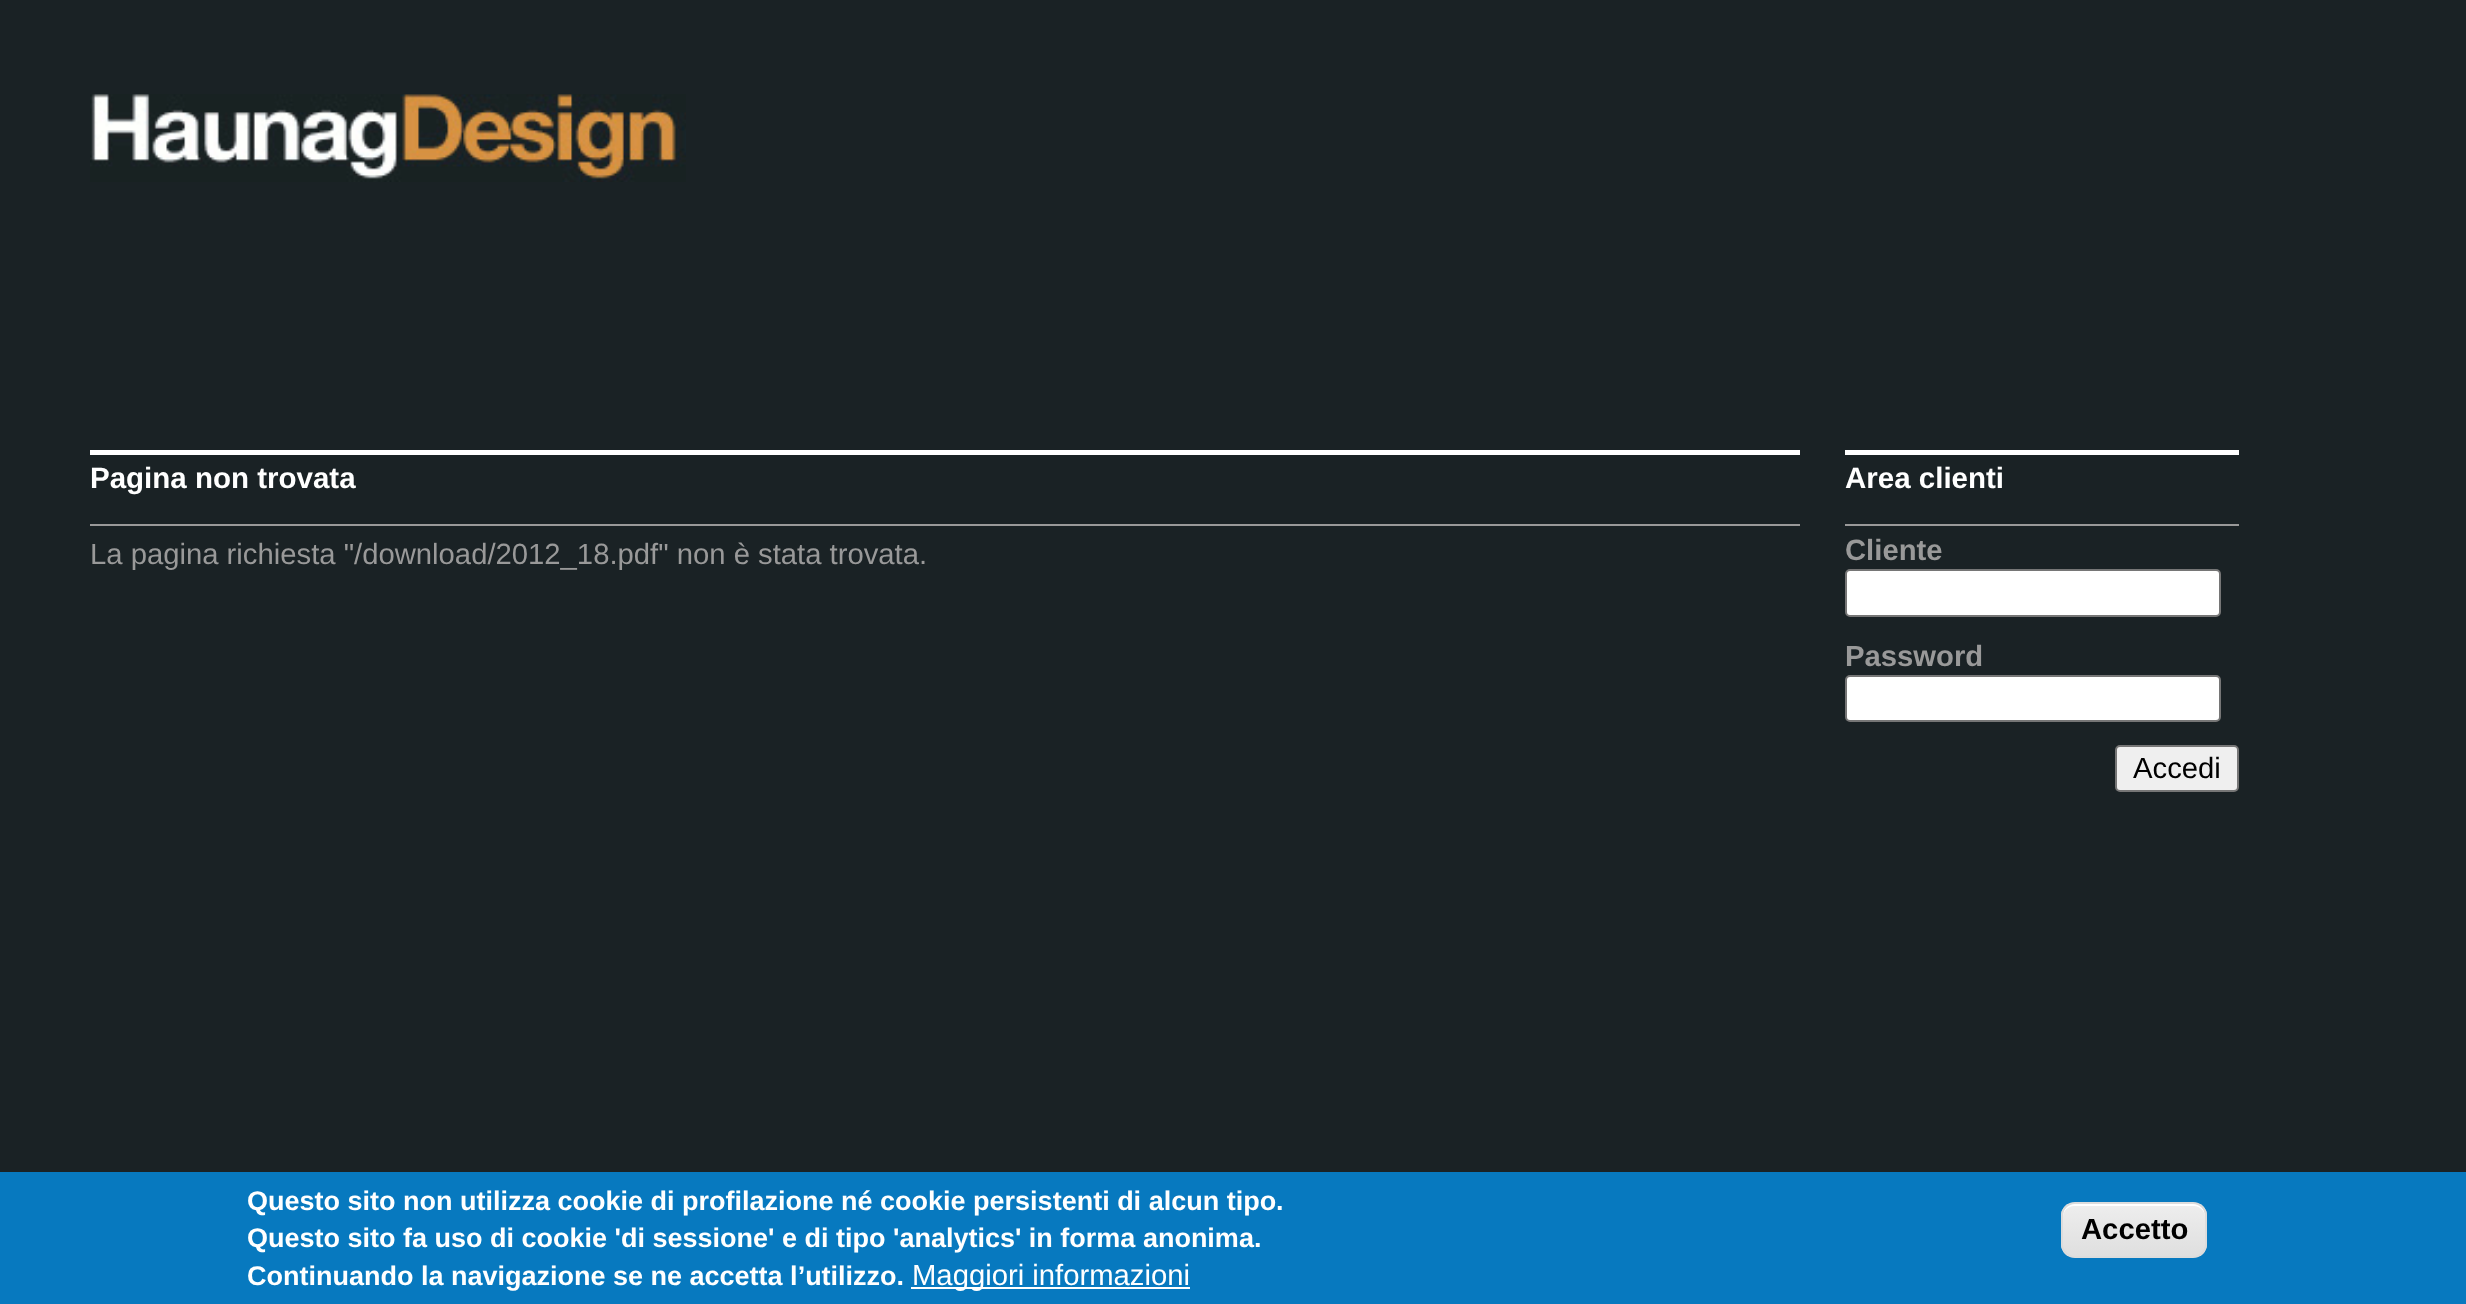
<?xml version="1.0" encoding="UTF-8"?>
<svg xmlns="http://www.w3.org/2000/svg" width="2466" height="1304">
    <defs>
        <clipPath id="clip1"><rect x="2061" y="1202" width="146" height="56" rx="14"/></clipPath>
        <linearGradient id="g1" gradientUnits="userSpaceOnUse" x1="2134" y1="1204" x2="2134" y2="1256"><stop offset="0.05" stop-color="#EDEDED"/><stop offset="1" stop-color="#DFDFDF"/></linearGradient>
    </defs>
    <rect width="100%" height="100%" fill="#1A2225"/>
    <image x="90" y="94" width="596" height="88" href="img_01.png"/>
    <rect x="90" y="450" width="1710" height="5" fill="#FFFFFF"/>
    <rect x="90" y="524" width="1710" height="2" fill="#999999"/>
    <text x="90" y="488" font-family="Liberation Sans" font-size="29.5" font-weight="700" fill="#FFFFFF">Pagina non trovata</text>
    <text x="90" y="564" font-family="Liberation Sans" font-size="29.25" fill="#999999">La pagina richiesta "/download/2012_18.pdf" non è stata trovata.</text>
    <rect x="1845" y="450" width="394" height="5" fill="#FFFFFF"/>
    <rect x="1845" y="524" width="394" height="2" fill="#999999"/>
    <text x="1845" y="488" font-family="Liberation Sans" font-size="29.5" font-weight="700" fill="#FFFFFF">Area clienti</text>
    <text x="1845" y="560" font-family="Liberation Sans" font-size="29.25" font-weight="700" fill="#999999">Cliente</text>
    <rect x="1846" y="570" width="374" height="46" rx="4" fill="#FFFFFF" stroke="#767676" stroke-width="2"/>
    <text x="1845" y="666" font-family="Liberation Sans" font-size="29.25" font-weight="700" fill="#999999">Password</text>
    <rect x="1846" y="676" width="374" height="45" rx="4" fill="#FFFFFF" stroke="#767676" stroke-width="2"/>
    <rect x="2116" y="746" width="122" height="45" rx="4" fill="#EFEFEF" stroke="#767676" stroke-width="2"/>
    <text x="2133" y="778" font-family="Liberation Sans" font-size="29.25" fill="#000000">Accedi</text>
    <rect x="0" y="1172" width="2466" height="132" fill="#0779BF"/>
    <text font-family="Liberation Sans" font-size="27" font-weight="700" fill="#FFFFFF">
        <tspan x="247" y="1210">Questo sito non utilizza cookie di profilazione né cookie persistenti di alcun tipo.</tspan>
        <tspan x="247" y="1247">Questo sito fa uso di cookie 'di sessione' e di tipo 'analytics' in forma anonima.</tspan>
        <tspan x="247" y="1285">Continuando la navigazione se ne accetta l’utilizzo.</tspan>
    </text>
    <rect x="911" y="1287" width="279" height="2" fill="#FFFFFF"/>
    <text x="912" y="1285" font-family="Liberation Sans" font-size="29.25" fill="#FFFFFF">Maggiori informazioni</text>
    <g clip-path="url(#clip1)">
        <rect x="2061" y="1204" width="146" height="52" fill="url(#g1)"/>
    </g>
    <path d="M 2074 1206 H 2194 C 2200 1206 2205 1211 2205 1217 C 2205 1199 2187 1204 2174 1204 H 2094 C 2081 1204 2063 1199 2063 1217 C 2063 1211 2068 1206 2074 1206 Z" fill="#FFFFFF"/>
    <rect x="2062" y="1203" width="144" height="54" rx="13" fill="none" stroke="#DCDCDC" stroke-width="2"/>
    <text x="2081" y="1239" font-family="Liberation Sans" font-size="29.25" font-weight="700" fill="#000000">Accetto</text>
</svg>
